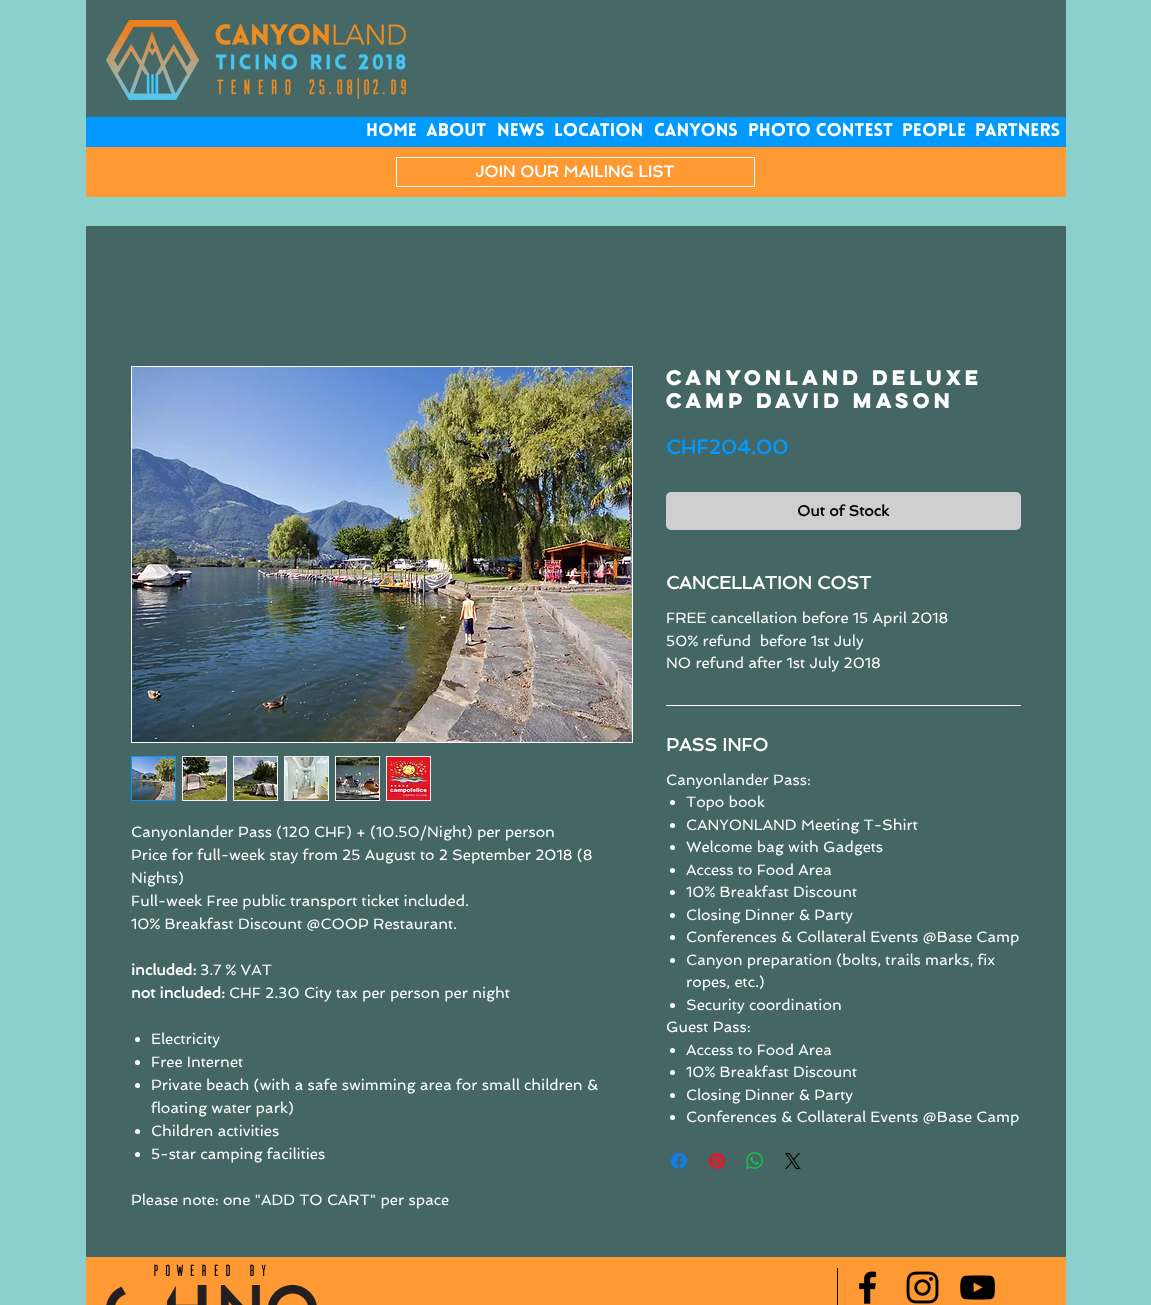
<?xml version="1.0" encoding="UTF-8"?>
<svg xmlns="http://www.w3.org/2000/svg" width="1151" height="1305">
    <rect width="100%" height="100%" fill="#8BD0CD"/>
    <rect x="86" y="0" width="980" height="117" fill="#466866"/>
    <image x="106" y="20" width="300" height="80" href="img_01.png"/>
    <rect x="86" y="117" width="980" height="30" fill="#0099FF"/>
    <text x="366" y="136" font-family="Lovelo" font-size="18" font-weight="900" fill="#FFFFFF">Home</text>
    <text x="426" y="136" font-family="Lovelo" font-size="18" font-weight="900" fill="#FFFFFF">About</text>
    <text x="497" y="136" font-family="Lovelo" font-size="18" font-weight="900" fill="#FFFFFF">News</text>
    <text x="554" y="136" font-family="Lovelo" font-size="18" font-weight="900" fill="#FFFFFF">Location</text>
    <text x="654" y="136" font-family="Lovelo" font-size="18" font-weight="900" fill="#FFFFFF">Canyons</text>
    <text x="748" y="136" font-family="Lovelo" font-size="18" font-weight="900" fill="#FFFFFF">Photo Contest</text>
    <text x="902" y="136" font-family="Lovelo" font-size="18" font-weight="900" fill="#FFFFFF">People</text>
    <text x="975" y="136" font-family="Lovelo" font-size="18" font-weight="900" fill="#FFFFFF">Partners</text>
    <rect x="86" y="147" width="980" height="50" fill="#FF9933"/>
    <rect x="396.5" y="157.5" width="358" height="29" fill="none" stroke="#FFFFFF"/>
    <text x="475" y="177" font-family="Spinnaker" font-size="16" font-weight="700" fill="#FFFFFF">JOIN OUR MAILING LIST</text>
    <rect x="86" y="226" width="980" height="1031" fill="#446665"/>
    <rect x="131.5" y="366.5" width="501" height="376" fill="none" stroke="#FFFFFF"/>
    <image x="132" y="367" width="500" height="375" href="img_02.png"/>
    <rect x="131.5" y="756.5" width="44" height="44" fill="none" stroke="#0099FF"/>
    <image x="132" y="757" width="43" height="43" href="img_03.png"/>
    <rect x="182" y="756" width="45" height="45" fill="#F2F2F2"/>
    <image x="183" y="757" width="43" height="43" href="img_04.png"/>
    <rect x="233" y="756" width="45" height="45" fill="#F2F2F2"/>
    <image x="234" y="757" width="43" height="43" href="img_05.png"/>
    <rect x="284" y="756" width="45" height="45" fill="#F2F2F2"/>
    <image x="285" y="757" width="43" height="43" href="img_06.png"/>
    <rect x="335" y="756" width="45" height="45" fill="#F2F2F2"/>
    <image x="336" y="757" width="43" height="43" href="img_07.png"/>
    <rect x="386" y="756" width="45" height="45" fill="#F2F2F2"/>
    <image x="387" y="757" width="43" height="43" href="img_08.png"/>
    <text font-family="Spinnaker" font-size="15" fill="#FFFFFF">
        <tspan x="131" y="837">Canyonlander Pass (120 CHF) + (10.50/Night) per person</tspan>
        <tspan x="131" y="860">Price for full-week stay from 25 August to 2 September 2018 (8</tspan>
        <tspan x="131" y="883">Nights)</tspan>
        <tspan x="131" y="906">Full-week Free public transport ticket included.</tspan>
        <tspan x="131" y="929">10% Breakfast Discount @COOP Restaurant.</tspan>
    </text>
    <text x="131" y="975" font-family="Spinnaker" font-size="15" font-weight="700" fill="#FFFFFF">included:</text>
    <text x="200" y="975" font-family="Spinnaker" font-size="15" fill="#FFFFFF">3.7 % VAT</text>
    <text x="131" y="998" font-family="Spinnaker" font-size="15" font-weight="700" fill="#FFFFFF">not included:</text>
    <text x="229" y="998" font-family="Spinnaker" font-size="15" fill="#FFFFFF">CHF 2.30 City tax per person per night</text>
    <circle cx="137.5" cy="1039.5" r="2.5" fill="#FFFFFF"/>
    <text x="151" y="1044" font-family="Spinnaker" font-size="15" fill="#FFFFFF">Electricity</text>
    <circle cx="137.5" cy="1062.5" r="2.5" fill="#FFFFFF"/>
    <text x="151" y="1067" font-family="Spinnaker" font-size="15" fill="#FFFFFF">Free Internet</text>
    <circle cx="137.5" cy="1085.5" r="2.5" fill="#FFFFFF"/>
    <text font-family="Spinnaker" font-size="15" fill="#FFFFFF">
        <tspan x="151" y="1090">Private beach (with a safe swimming area for small children &amp;</tspan>
        <tspan x="151" y="1113">floating water park)</tspan>
    </text>
    <circle cx="137.5" cy="1131.5" r="2.5" fill="#FFFFFF"/>
    <text x="151" y="1136" font-family="Spinnaker" font-size="15" fill="#FFFFFF">Children activities</text>
    <circle cx="137.5" cy="1154.5" r="2.5" fill="#FFFFFF"/>
    <text x="151" y="1159" font-family="Spinnaker" font-size="15" fill="#FFFFFF">5-star camping facilities</text>
    <text x="131" y="1205" font-family="Spinnaker" font-size="15" fill="#FFFFFF">Please note: one "ADD TO CART" per space</text>
    <text font-family="'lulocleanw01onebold'" font-size="19" font-weight="700" fill="#FFFFFF">
        <tspan x="666" y="385">CANYONLAND Deluxe</tspan>
        <tspan x="666" y="408">Camp David Mason</tspan>
    </text>
    <text x="666" y="454" font-family="Spinnaker" font-size="20" font-weight="700" fill="#0099FF">CHF204.00</text>
    <rect x="666" y="492" width="355" height="38" rx="5" fill="#CFCFCF"/>
    <text x="797" y="516" font-family="Spinnaker" font-size="15" font-weight="700" fill="#000000">Out of Stock</text>
    <rect x="666" y="705" width="355" height="1" fill="#FFFFFF"/>
    <text x="666" y="589" font-family="Spinnaker" font-size="18" font-weight="700" fill="#FFFFFF">CANCELLATION COST</text>
    <text font-family="Spinnaker" font-size="15" fill="#FFFFFF" xml:space="preserve"><tspan x="666" y="623">FREE cancellation before 15 April 2018</tspan><tspan x="666" y="646">50% refund  before 1st July</tspan><tspan x="666" y="668">NO refund after 1st July 2018</tspan></text>
    <text x="666" y="751" font-family="Spinnaker" font-size="18" font-weight="700" fill="#FFFFFF">PASS INFO</text>
    <text x="666" y="785" font-family="Spinnaker" font-size="15" fill="#FFFFFF">Canyonlander Pass:</text>
    <circle cx="672.5" cy="802.5" r="2.5" fill="#FFFFFF"/>
    <text x="686" y="807" font-family="Spinnaker" font-size="15" fill="#FFFFFF">Topo book</text>
    <circle cx="672.5" cy="825.5" r="2.5" fill="#FFFFFF"/>
    <text x="686" y="830" font-family="Spinnaker" font-size="15" fill="#FFFFFF">CANYONLAND Meeting T-Shirt</text>
    <circle cx="672.5" cy="847.5" r="2.5" fill="#FFFFFF"/>
    <text x="686" y="852" font-family="Spinnaker" font-size="15" fill="#FFFFFF">Welcome bag with Gadgets</text>
    <circle cx="672.5" cy="870.5" r="2.5" fill="#FFFFFF"/>
    <text x="686" y="875" font-family="Spinnaker" font-size="15" fill="#FFFFFF">Access to Food Area</text>
    <circle cx="672.5" cy="892.5" r="2.5" fill="#FFFFFF"/>
    <text x="686" y="897" font-family="Spinnaker" font-size="15" fill="#FFFFFF">10% Breakfast Discount</text>
    <circle cx="672.5" cy="915.5" r="2.5" fill="#FFFFFF"/>
    <text x="686" y="920" font-family="Spinnaker" font-size="15" fill="#FFFFFF">Closing Dinner &amp; Party</text>
    <circle cx="672.5" cy="937.5" r="2.5" fill="#FFFFFF"/>
    <text x="686" y="942" font-family="Spinnaker" font-size="15" fill="#FFFFFF">Conferences &amp; Collateral Events @Base Camp</text>
    <circle cx="672.5" cy="960.5" r="2.5" fill="#FFFFFF"/>
    <text font-family="Spinnaker" font-size="15" fill="#FFFFFF">
        <tspan x="686" y="965">Canyon preparation (bolts, trails marks, fix</tspan>
        <tspan x="686" y="987">ropes, etc.)</tspan>
    </text>
    <circle cx="672.5" cy="1005.5" r="2.5" fill="#FFFFFF"/>
    <text x="686" y="1010" font-family="Spinnaker" font-size="15" fill="#FFFFFF">Security coordination</text>
    <text x="666" y="1032" font-family="Spinnaker" font-size="15" fill="#FFFFFF">Guest Pass:</text>
    <circle cx="672.5" cy="1050.5" r="2.5" fill="#FFFFFF"/>
    <text x="686" y="1055" font-family="Spinnaker" font-size="15" fill="#FFFFFF">Access to Food Area</text>
    <circle cx="672.5" cy="1072.5" r="2.5" fill="#FFFFFF"/>
    <text x="686" y="1077" font-family="Spinnaker" font-size="15" fill="#FFFFFF">10% Breakfast Discount</text>
    <circle cx="672.5" cy="1095.5" r="2.5" fill="#FFFFFF"/>
    <text x="686" y="1100" font-family="Spinnaker" font-size="15" fill="#FFFFFF">Closing Dinner &amp; Party</text>
    <circle cx="672.5" cy="1117.5" r="2.5" fill="#FFFFFF"/>
    <text x="686" y="1122" font-family="Spinnaker" font-size="15" fill="#FFFFFF">Conferences &amp; Collateral Events @Base Camp</text>
    <image x="671" y="1153" width="16" height="16" href="img_09.png"/>
    <image x="709" y="1153" width="16" height="16" href="img_10.png"/>
    <image x="746" y="1152" width="17" height="17" href="img_11.png"/>
    <image x="785" y="1153" width="16" height="16" href="img_12.png"/>
    <rect x="86" y="1257" width="980" height="48" fill="#FF9933"/>
    <text x="151" y="1276" font-family="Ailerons" font-size="16" letter-spacing="2.4" fill="#000000">powered by</text>
    <rect x="837" y="1268" width="1" height="37" fill="#000000"/>
    <image x="859" y="1271" width="18" height="33" href="img_13.png"/>
    <image x="906" y="1271" width="33" height="33" href="img_14.png"/>
    <image x="960" y="1275" width="36" height="25" href="img_15.png"/>
    <image x="106" y="1285" width="211" height="20" href="img_16.png"/>
</svg>
